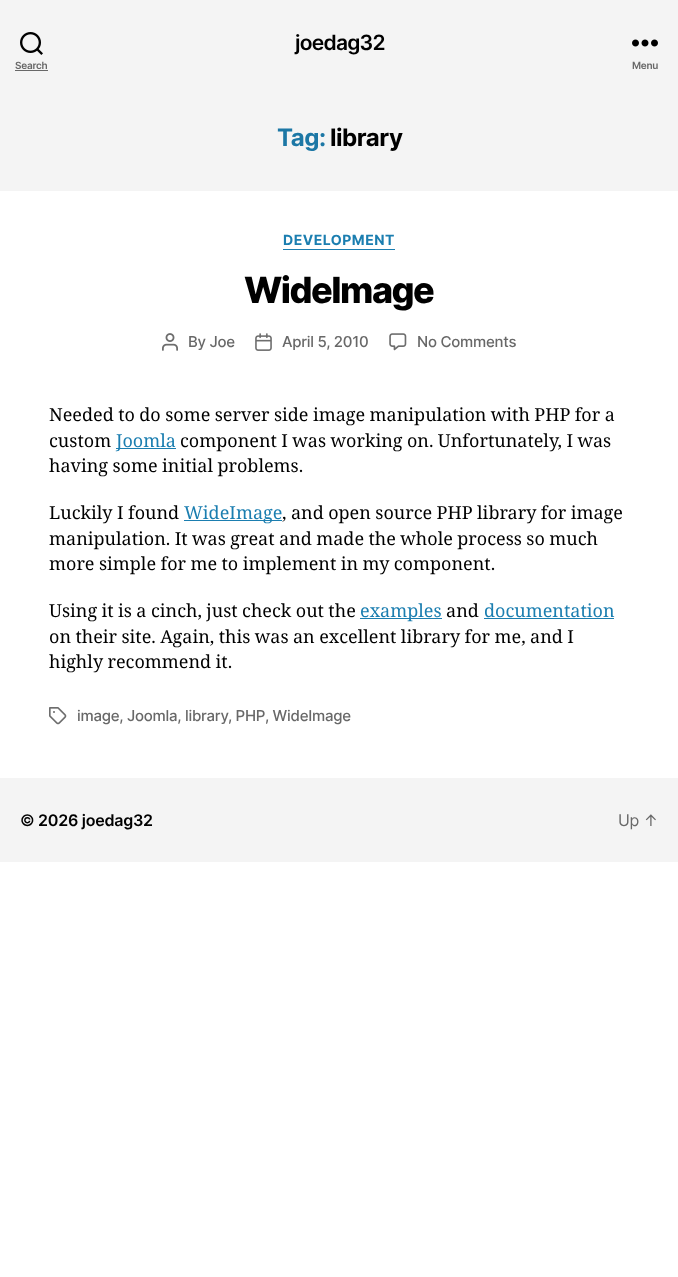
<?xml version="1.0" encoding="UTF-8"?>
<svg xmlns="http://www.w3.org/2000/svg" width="678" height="1277">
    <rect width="100%" height="100%" fill="#FFFFFF"/>
    <rect x="0" y="0" width="678" height="191" fill="#F4F4F4"/>
    <text x="295" y="50" font-family="Inter" font-size="21" font-weight="600" letter-spacing="-0.75" fill="#000000">joedag32</text>
    <image x="20" y="32" width="23" height="23" href="img_01.png"/>
    <text x="15" y="69" font-family="Inter" font-size="10" font-weight="600" letter-spacing="-0.25" fill="#686868">Search</text>
    <rect x="15" y="70" width="33" height="1" fill="#686868"/>
    <image x="632" y="39" width="26" height="8" href="img_02.png"/>
    <text x="632" y="69" font-family="Inter" font-size="10" font-weight="600" letter-spacing="-0.25" fill="#686868">Menu</text>
    <text x="277" y="146" font-family="Inter" font-size="24" font-weight="700" letter-spacing="-0.5" fill="#1C77A5">Tag:</text>
    <text x="330" y="146" font-family="Inter" font-size="24" font-weight="700" letter-spacing="-0.5" fill="#000000">library</text>
    <rect x="283" y="249" width="112" height="1" fill="#1B7EB0"/>
    <text x="283" y="245" font-family="Inter" font-size="14" font-weight="700" letter-spacing="0.5" fill="#1B7EB0">DEVELOPMENT</text>
    <text x="244" y="303" font-family="Inter" font-size="36" font-weight="800" letter-spacing="-1.5" fill="#000000">WideImage</text>
    <image x="162" y="333" width="16" height="18" href="img_03.png"/>
    <text x="188" y="347" font-family="Inter" font-size="15" font-weight="500" letter-spacing="-0.25" fill="#686868">By Joe</text>
    <image x="255" y="333" width="17" height="18" href="img_04.png"/>
    <text x="282" y="347" font-family="Inter" font-size="15" font-weight="500" letter-spacing="-0.25" fill="#686868">April 5, 2010</text>
    <image x="389" y="333" width="18" height="18" href="img_05.png"/>
    <text x="417" y="347" font-family="Inter" font-size="15" font-weight="500" letter-spacing="-0.25" fill="#686868">No Comments</text>
    <text font-family="Noto Serif" font-size="18" fill="#000000">
        <tspan x="49" y="421" word-spacing="-0.25">Needed to do some server side image manipulation with PHP for a</tspan>
        <tspan x="49" y="447">custom</tspan>
    </text>
    <rect x="116" y="448" width="60" height="1" fill="#1B7EB0"/>
    <text x="116" y="447" font-family="Noto Serif" font-size="18" fill="#1B7EB0">Joomla</text>
    <text x="180" y="447" word-spacing="-0.25" font-family="Noto Serif" font-size="18" fill="#000000">component I was working on. Unfortunately, I was</text>
    <text x="49" y="472" word-spacing="-0.25" font-family="Noto Serif" font-size="18" fill="#000000">having some initial problems.</text>
    <text x="49" y="519" word-spacing="-0.25" font-family="Noto Serif" font-size="18" fill="#000000">Luckily I found</text>
    <rect x="184" y="520" width="98" height="1" fill="#1B7EB0"/>
    <text x="184" y="519" font-family="Noto Serif" font-size="18" fill="#1B7EB0">WideImage</text>
    <text x="282" y="519" word-spacing="-0.25" font-family="Noto Serif" font-size="18" fill="#000000">, and open source PHP library for image</text>
    <text font-family="Noto Serif" font-size="18" fill="#000000">
        <tspan x="49" y="545" word-spacing="-0.25">manipulation. It was great and made the whole process so much</tspan>
        <tspan x="49" y="570" word-spacing="-0.25">more simple for me to implement in my component.</tspan>
    </text>
    <text x="49" y="617" word-spacing="-0.25" font-family="Noto Serif" font-size="18" fill="#000000">Using it is a cinch, just check out the</text>
    <rect x="360" y="618" width="82" height="1" fill="#1B7EB0"/>
    <text x="360" y="617" font-family="Noto Serif" font-size="18" fill="#1B7EB0">examples</text>
    <text x="446" y="617" font-family="Noto Serif" font-size="18" fill="#000000">and</text>
    <text x="484" y="617" font-family="Noto Serif" font-size="18" fill="#1B7EB0">documentation</text>
    <rect x="484" y="618" width="130" height="1" fill="#1B7EB0"/>
    <text font-family="Noto Serif" font-size="18" fill="#000000">
        <tspan x="49" y="643" word-spacing="-0.25">on their site. Again, this was an excellent library for me, and I</tspan>
        <tspan x="49" y="668" word-spacing="-0.25">highly recommend it.</tspan>
    </text>
    <image x="49" y="707" width="18" height="18" href="img_06.png"/>
    <text x="77" y="721" font-family="Inter" font-size="15" font-weight="500" letter-spacing="-0.25" fill="#686868">image, Joomla, library</text>
    <text x="228" y="721" font-family="Inter" font-size="15" font-weight="500" letter-spacing="-0.25" fill="#686868">, PHP</text>
    <text x="265" y="721" font-family="Inter" font-size="15" font-weight="500" letter-spacing="-0.25" fill="#686868">, WideImage</text>
    <rect x="0" y="778" width="678" height="84" fill="#F4F4F4"/>
    <text x="20" y="826" font-family="Inter" font-size="16" font-weight="600" letter-spacing="-0.25" fill="#000000">© 2026 joedag32</text>
    <text x="618" y="826" font-family="Inter" font-size="16" letter-spacing="-0.25" fill="#686868">Up ↑</text>
</svg>
